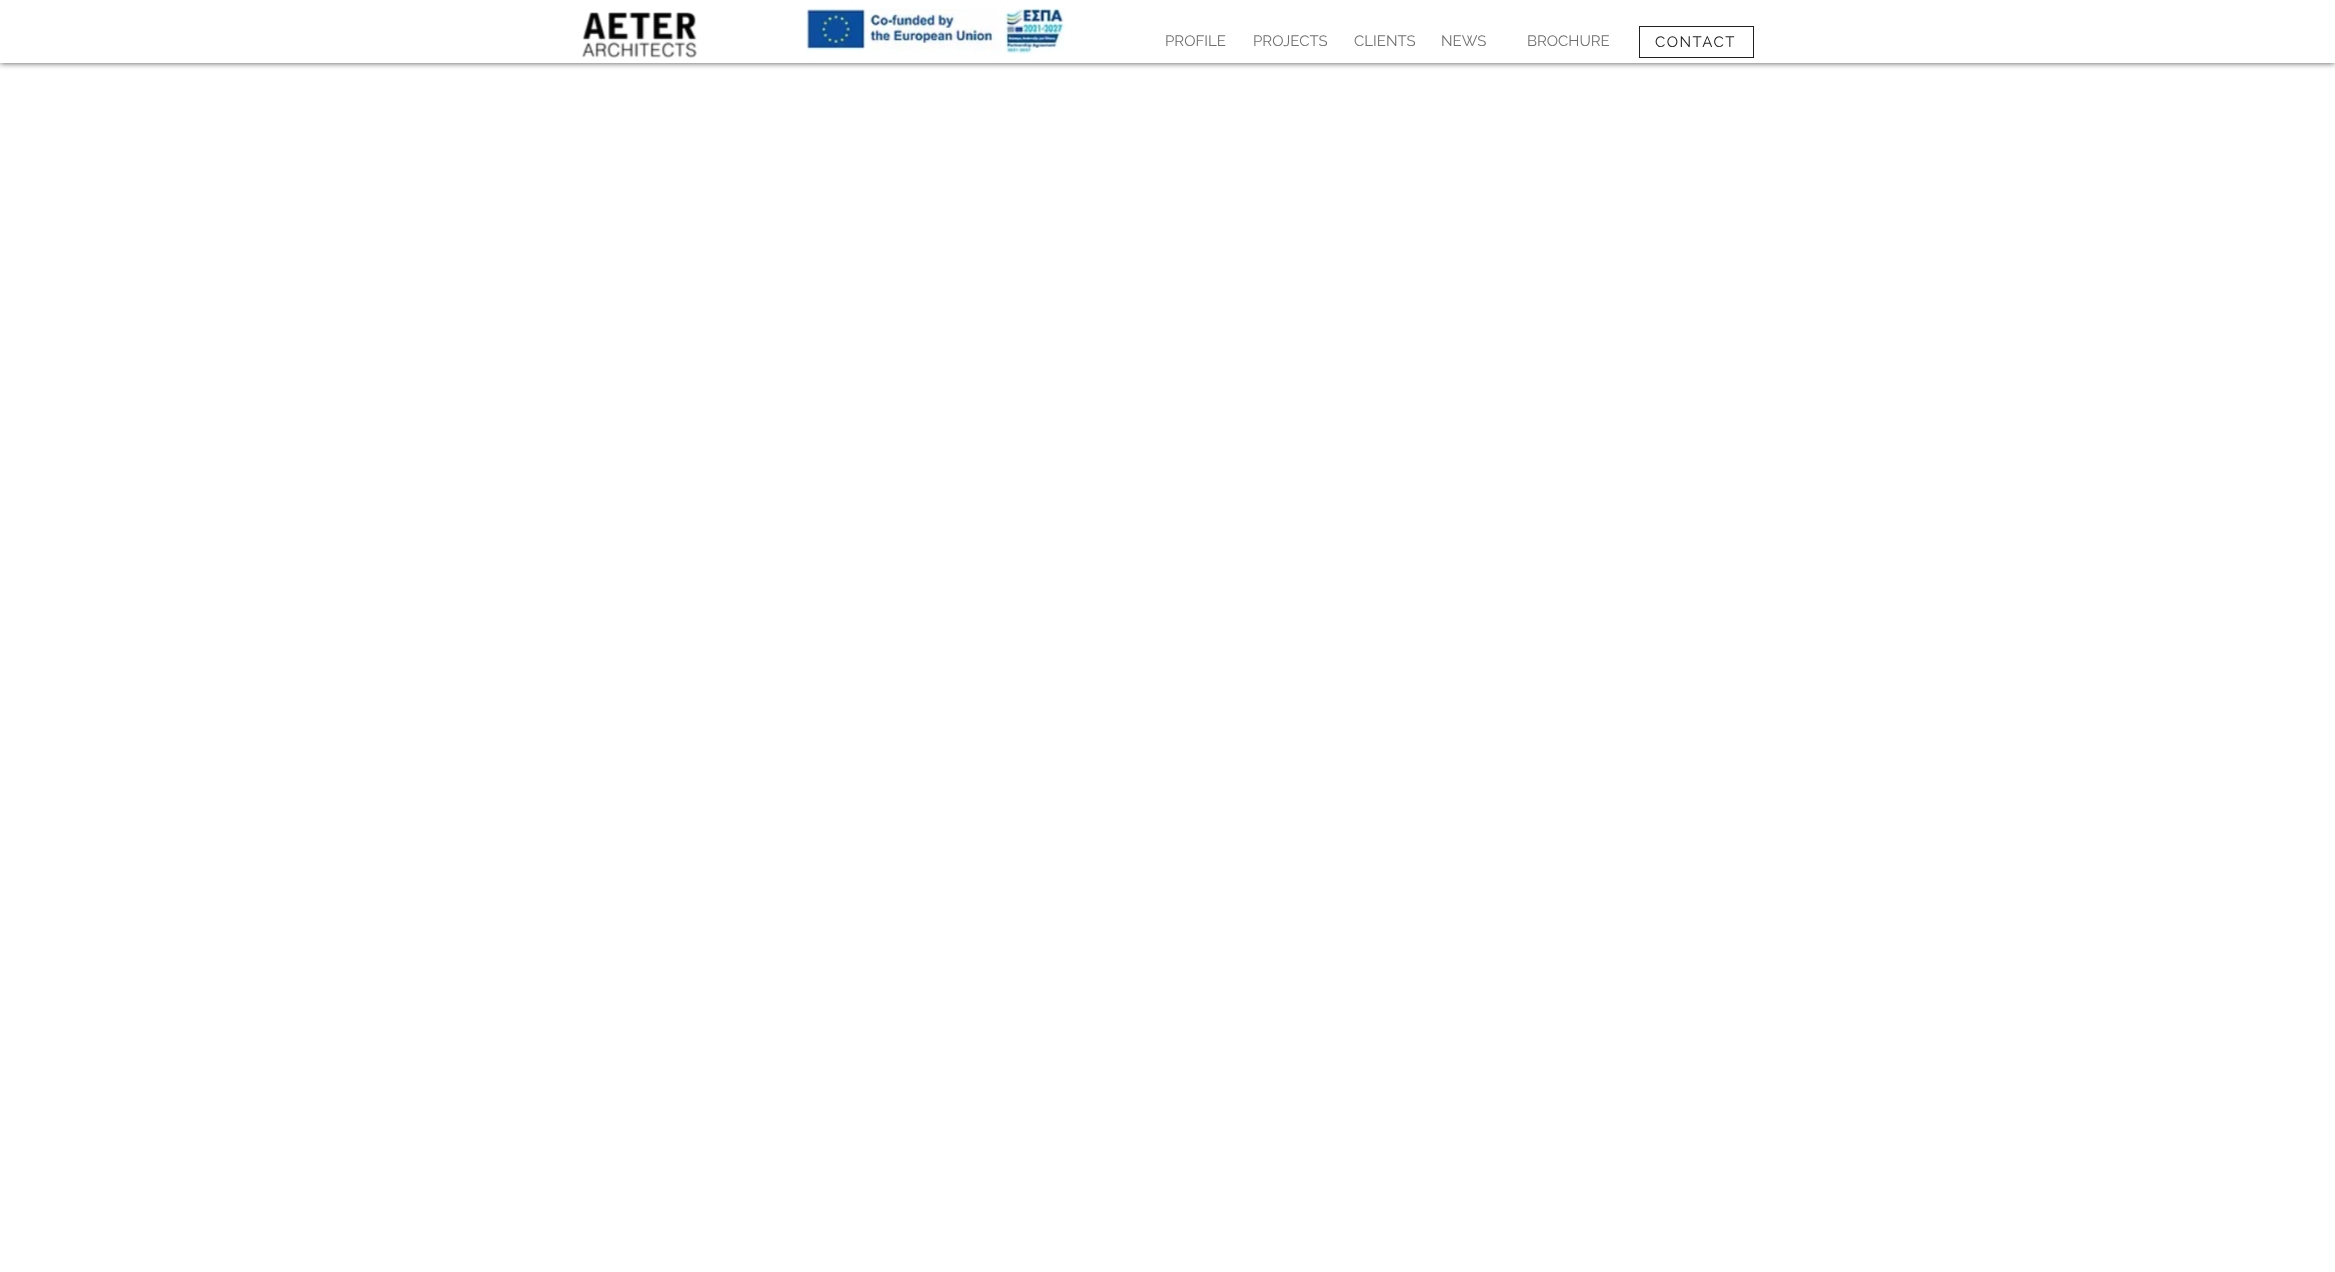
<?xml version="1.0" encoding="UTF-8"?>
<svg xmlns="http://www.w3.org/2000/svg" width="2335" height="1272">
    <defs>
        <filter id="blur1" x="-50%" y="-200%" width="200%" height="500%"><feGaussianBlur stdDeviation="3"/></filter>
    </defs>
    <rect width="100%" height="100%" fill="#FFFFFF"/>
    <rect x="0" y="0" width="2335" height="63" fill="#000000" fill-opacity="0.7" filter="url(#blur1)"/>
    <rect x="0" y="0" width="2335" height="63" fill="#FFFFFF"/>
    <image x="582" y="12" width="115" height="46" href="img_01.png"/>
    <image x="806" y="8" width="259" height="46" href="img_02.png"/>
    <text x="1165" y="46" font-family="Raleway" font-size="15" fill="#717070">PROFILE</text>
    <text x="1253" y="46" font-family="Raleway" font-size="15" fill="#717070">PROJECTS</text>
    <text x="1354" y="46" font-family="Raleway" font-size="15" fill="#717070">CLIENTS</text>
    <text x="1441" y="46" font-family="Raleway" font-size="15" fill="#717070">NEWS</text>
    <text x="1527" y="46" font-family="Raleway" font-size="15" fill="#717070">BROCHURE</text>
    <rect x="1639.5" y="26.5" width="114" height="31" fill="none" stroke="#202020"/>
    <text x="1655" y="47" font-family="Raleway" font-size="15" letter-spacing="1.5" fill="#202020">CONTACT</text>
</svg>
